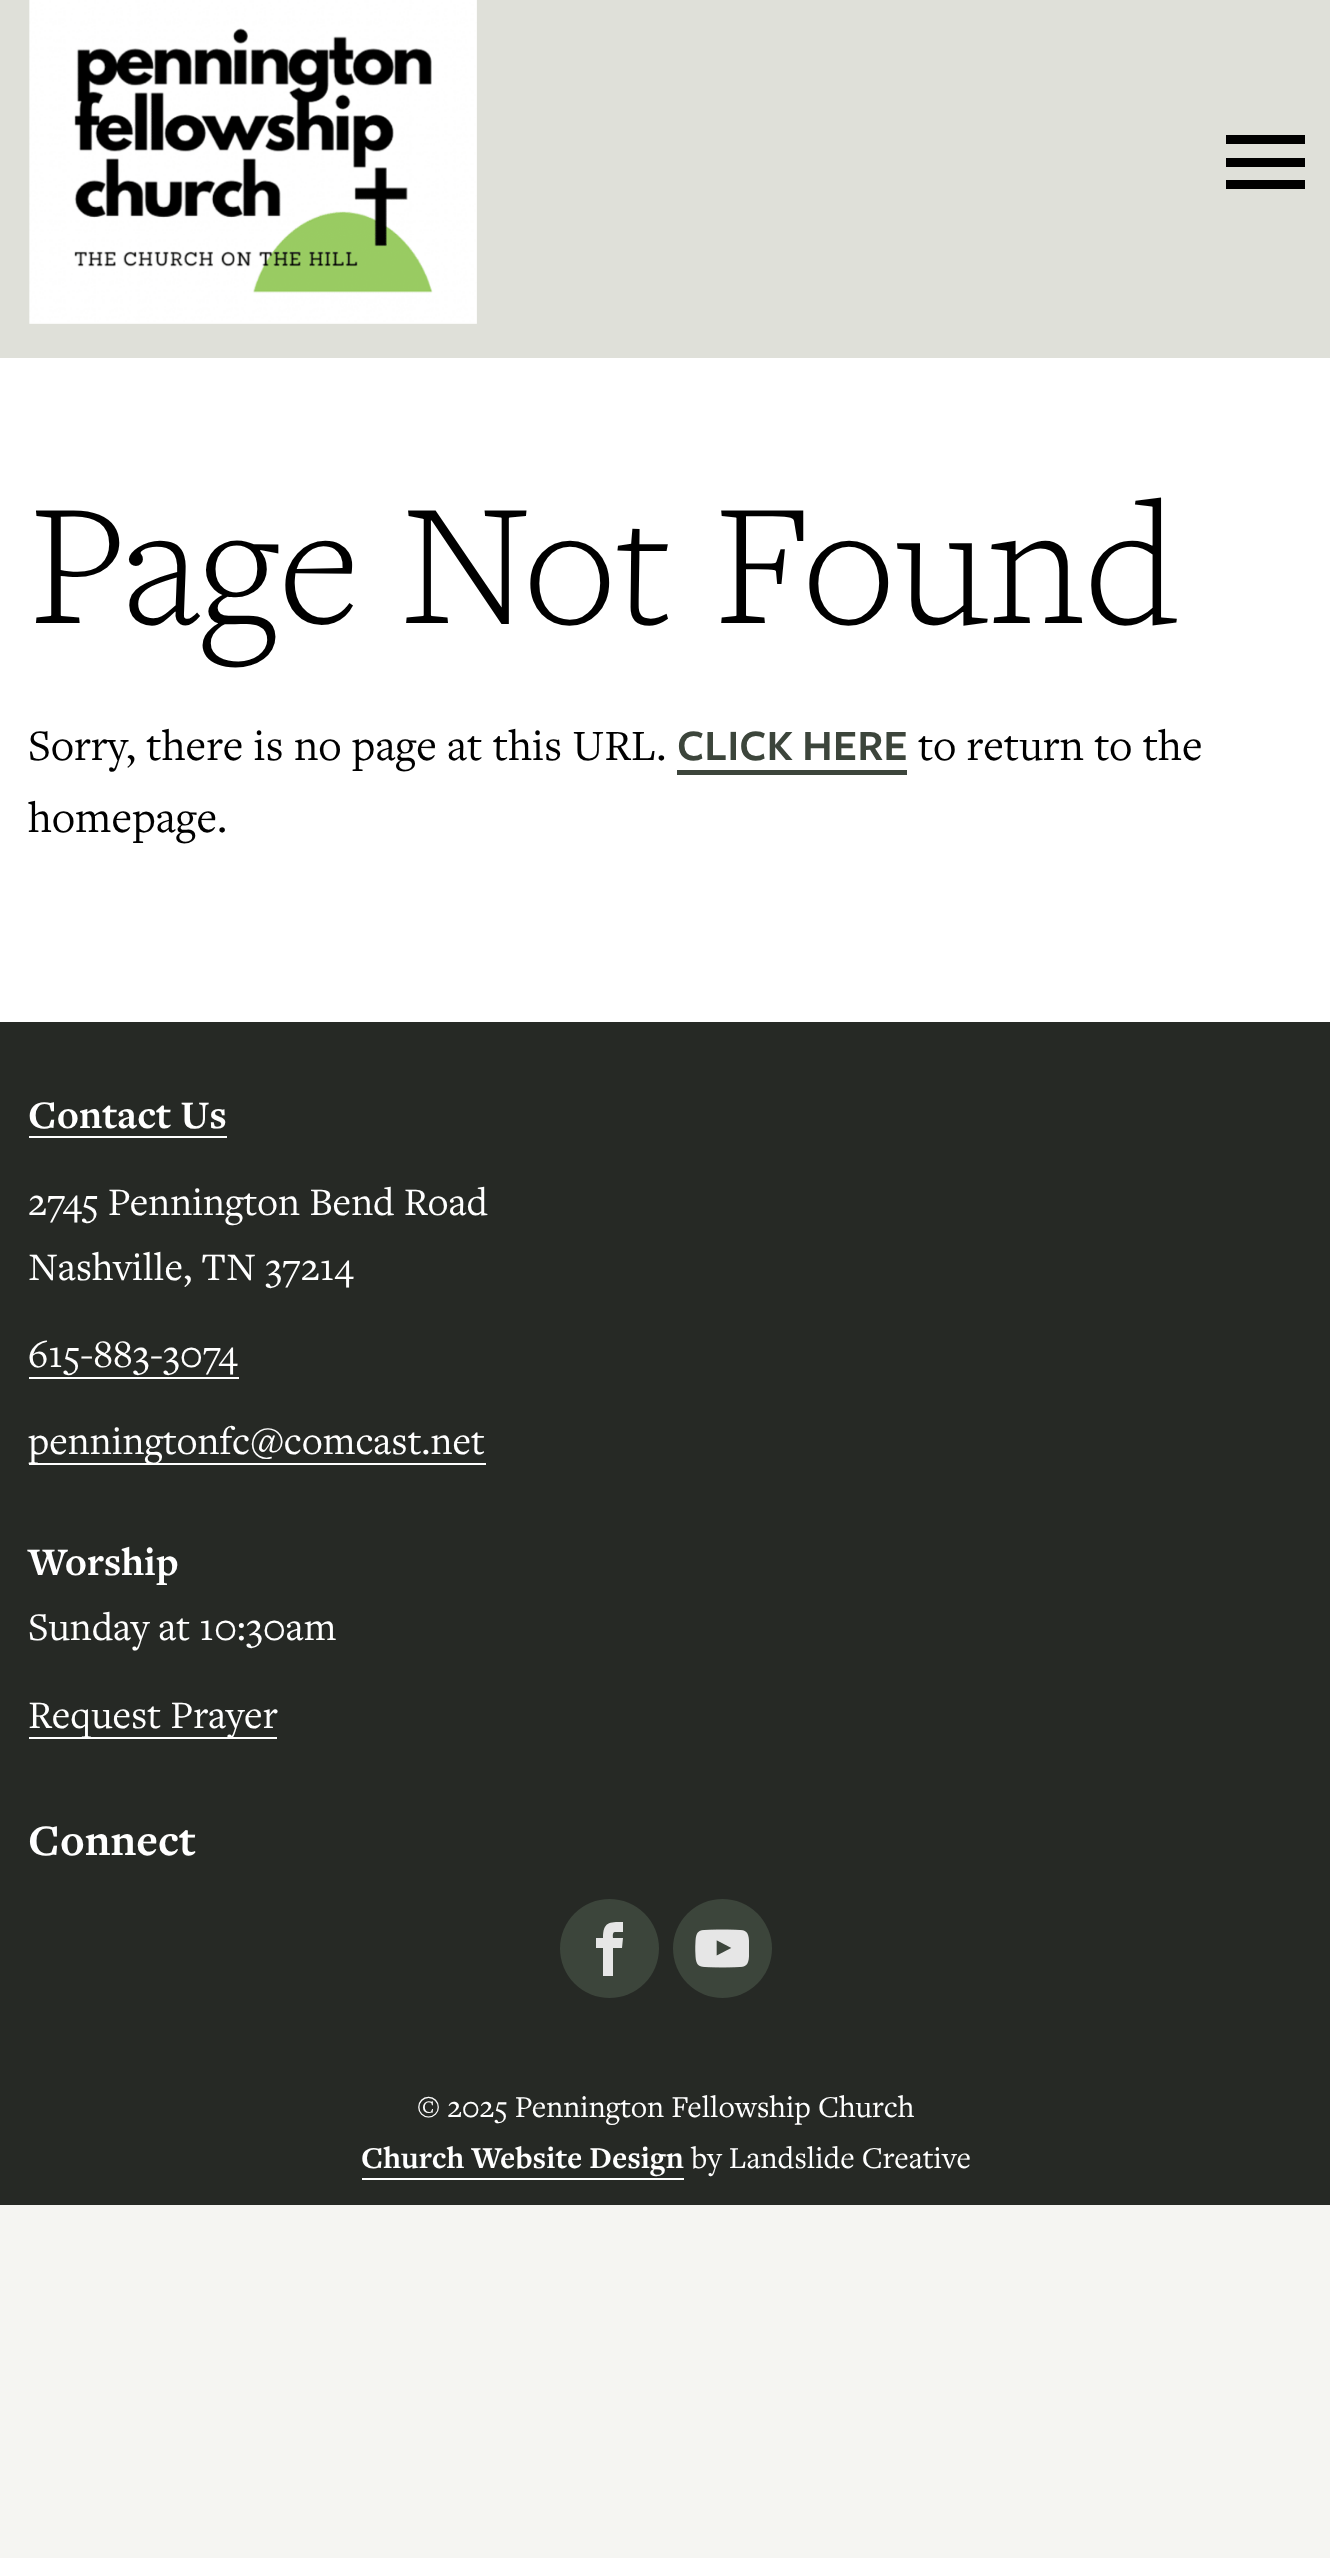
<?xml version="1.0" encoding="UTF-8"?>
<svg xmlns="http://www.w3.org/2000/svg" width="1330" height="2558">
    <rect width="100%" height="100%" fill="#F5F5F2"/>
    <rect x="0" y="0" width="1330" height="358" fill="#DFE0D9"/>
    <image x="29" y="0" width="448" height="324" href="img_01.png"/>
    <rect x="1226" y="135" width="79" height="9" fill="#000000"/>
    <rect x="1226" y="158" width="79" height="9" fill="#000000"/>
    <rect x="1226" y="180" width="79" height="9" fill="#000000"/>
    <rect x="0" y="358" width="1330" height="664" fill="#FFFFFF"/>
    <text x="28" y="623" font-family="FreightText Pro" font-size="180" font-weight="300" fill="#000000">Page Not Found</text>
    <text x="28" y="760" font-family="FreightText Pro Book" font-size="45" fill="#000000">Sorry, there is no page at this URL.</text>
    <text x="677" y="760" font-family="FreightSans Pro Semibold" font-size="45" font-weight="600" fill="#3C453B">CLICK HERE</text>
    <rect x="677" y="770" width="230" height="5" fill="#3C453B"/>
    <text x="918" y="760" font-family="FreightText Pro Book" font-size="45" fill="#000000">to return to the</text>
    <text x="28" y="832" font-family="FreightText Pro Book" font-size="45" fill="#000000">homepage.</text>
    <rect x="0" y="1022" width="1330" height="1183" fill="#262925"/>
    <text x="28" y="1128" font-family="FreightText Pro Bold" font-size="40.5" font-weight="700" fill="#FFFFFF">Contact Us</text>
    <rect x="29" y="1136" width="198" height="2" fill="#FFFFFF"/>
    <text font-family="FreightText Pro Book" font-size="40.5" fill="#FFFFFF">
        <tspan x="28" y="1215">2745 Pennington Bend Road</tspan>
        <tspan x="28" y="1280">Nashville, TN 37214</tspan>
    </text>
    <text x="28" y="1367" font-family="FreightText Pro Book" font-size="40.5" fill="#FFFFFF">615-883-3074</text>
    <rect x="29" y="1377" width="210" height="2" fill="#FFFFFF"/>
    <rect x="29" y="1463" width="457" height="2" fill="#FFFFFF"/>
    <text x="28" y="1454" font-family="FreightText Pro Book" font-size="40.5" fill="#FFFFFF">penningtonfc@comcast.net</text>
    <text x="28" y="1575" font-family="FreightText Pro Bold" font-size="40.5" font-weight="700" fill="#FFFFFF">Worship</text>
    <text x="28" y="1640" font-family="FreightText Pro Book" font-size="40.5" fill="#FFFFFF">Sunday at 10:30am</text>
    <rect x="29" y="1737" width="248" height="2" fill="#FFFFFF"/>
    <text x="28" y="1728" font-family="FreightText Pro Book" font-size="40.5" fill="#FFFFFF">Request Prayer</text>
    <text x="28" y="1855" font-family="FreightText Pro Bold" font-size="45" font-weight="700" fill="#FFFFFF">Connect</text>
    <circle cx="609.5" cy="1948.5" r="49.5" fill="#3C453B"/>
    <path d="M 615 1932 H 623 V 1922 C 609 1922 603 1922 603 1938 H 596 V 1948 H 603 V 1976 H 613 V 1948 H 622 L 623 1938 H 613 C 613 1937 612 1932 615 1932 Z" fill="#E6E6E6"/>
    <circle cx="722.5" cy="1948.5" r="49.5" fill="#3C453B"/>
    <image x="695" y="1929" width="54" height="39" href="img_02.png"/>
    <text x="417" y="2117" font-family="FreightText Pro Book" font-size="31.5" fill="#FFFFFF">© 2025 Pennington Fellowship Church</text>
    <text x="361" y="2168" font-family="FreightText Pro Bold" font-size="31.5" font-weight="700" fill="#FFFFFF">Church Website Design</text>
    <rect x="362" y="2178" width="322" height="2" fill="#FFFFFF"/>
    <text x="691" y="2168" font-family="FreightText Pro Book" font-size="31.5" fill="#FFFFFF">by Landslide Creative</text>
</svg>
